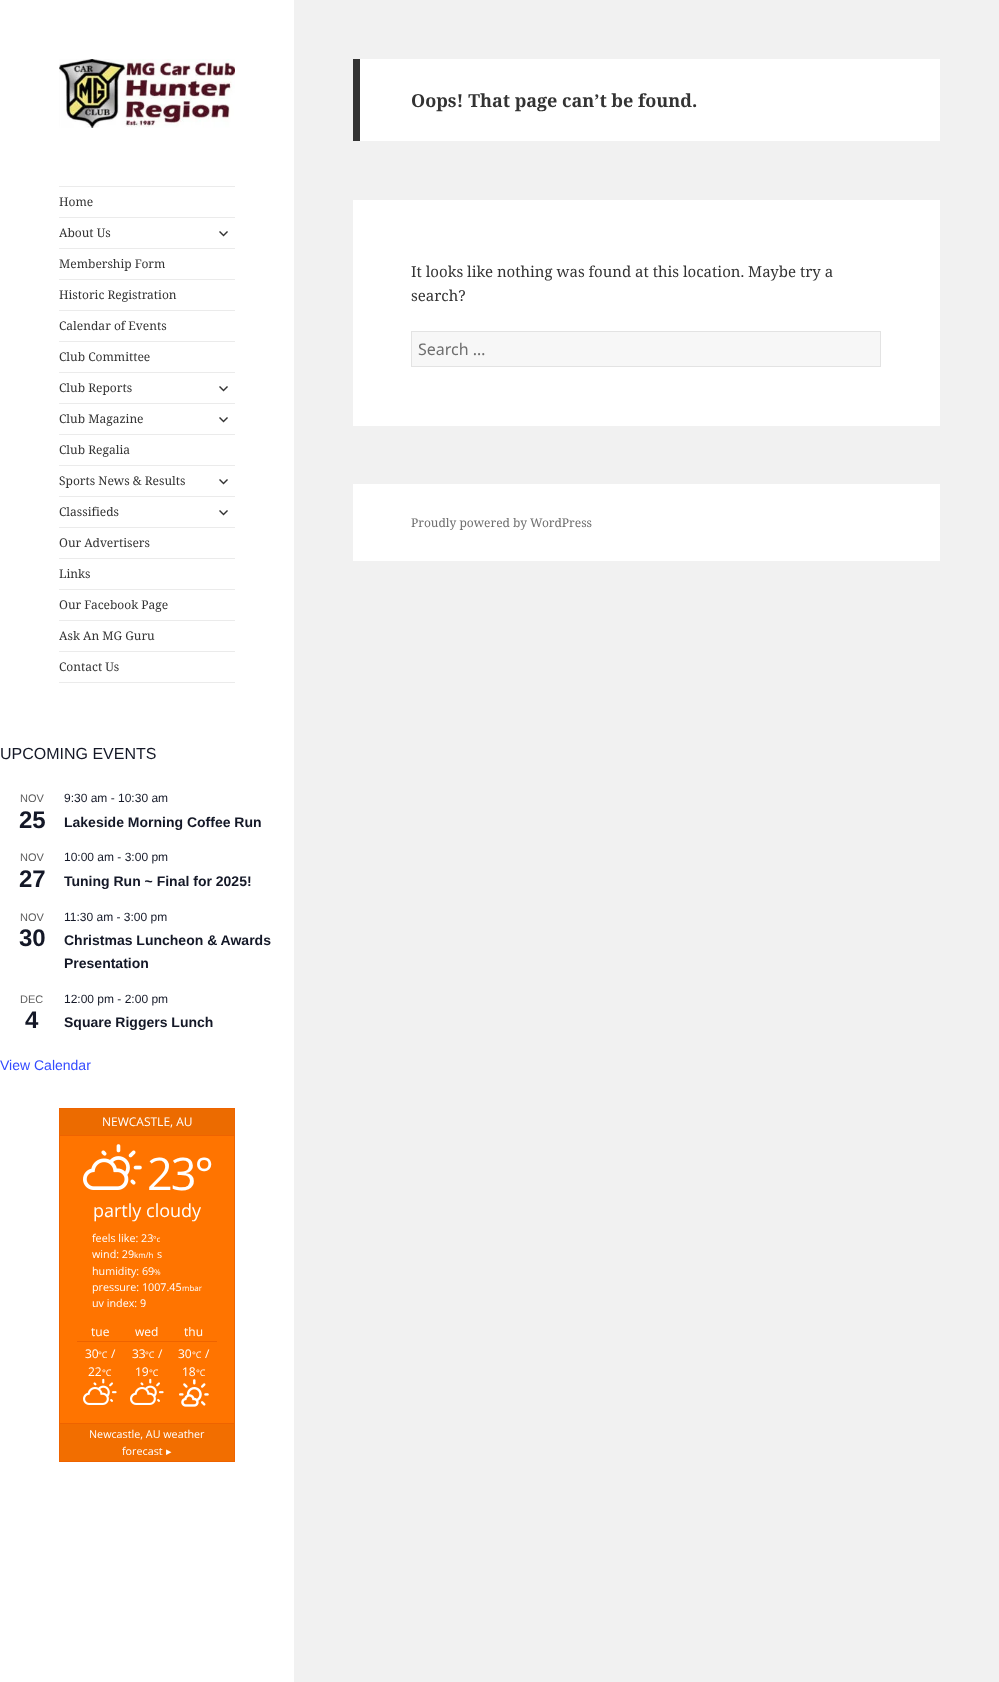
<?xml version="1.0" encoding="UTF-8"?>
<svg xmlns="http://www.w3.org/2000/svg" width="999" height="1682">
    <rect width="100%" height="100%" fill="#F1F1F1"/>
    <rect x="0" y="0" width="294" height="1682" fill="#FFFFFF"/>
    <image x="59" y="59" width="176" height="69" href="img_01.png"/>
    <rect x="59" y="186" width="176" height="1" fill="#EBEBEB"/>
    <rect x="59" y="682" width="176" height="1" fill="#EBEBEB"/>
    <text x="59" y="206" font-family="Noto Serif" font-size="12" fill="#333333">Home</text>
    <rect x="59" y="217" width="176" height="1" fill="#EBEBEB"/>
    <text x="59" y="237" font-family="Noto Serif" font-size="12" fill="#333333">About Us</text>
    <image x="219" y="231" width="9" height="6" href="img_02.png"/>
    <rect x="59" y="248" width="176" height="1" fill="#EBEBEB"/>
    <text x="59" y="268" font-family="Noto Serif" font-size="12" fill="#333333">Membership Form</text>
    <rect x="59" y="279" width="176" height="1" fill="#EBEBEB"/>
    <text x="59" y="299" font-family="Noto Serif" font-size="12" fill="#333333">Historic Registration</text>
    <rect x="59" y="310" width="176" height="1" fill="#EBEBEB"/>
    <text x="59" y="330" font-family="Noto Serif" font-size="12" fill="#333333">Calendar of Events</text>
    <rect x="59" y="341" width="176" height="1" fill="#EBEBEB"/>
    <text x="59" y="361" font-family="Noto Serif" font-size="12" fill="#333333">Club Committee</text>
    <rect x="59" y="372" width="176" height="1" fill="#EBEBEB"/>
    <text x="59" y="392" font-family="Noto Serif" font-size="12" fill="#333333">Club Reports</text>
    <image x="219" y="386" width="9" height="6" href="img_02.png"/>
    <rect x="59" y="403" width="176" height="1" fill="#EBEBEB"/>
    <text x="59" y="423" font-family="Noto Serif" font-size="12" fill="#333333">Club Magazine</text>
    <image x="219" y="417" width="9" height="6" href="img_02.png"/>
    <rect x="59" y="434" width="176" height="1" fill="#EBEBEB"/>
    <text x="59" y="454" font-family="Noto Serif" font-size="12" fill="#333333">Club Regalia</text>
    <rect x="59" y="465" width="176" height="1" fill="#EBEBEB"/>
    <text x="59" y="485" font-family="Noto Serif" font-size="12" fill="#333333">Sports News &amp; Results</text>
    <image x="219" y="479" width="9" height="6" href="img_02.png"/>
    <rect x="59" y="496" width="176" height="1" fill="#EBEBEB"/>
    <text x="59" y="516" font-family="Noto Serif" font-size="12" fill="#333333">Classifieds</text>
    <image x="219" y="510" width="9" height="6" href="img_02.png"/>
    <rect x="59" y="527" width="176" height="1" fill="#EBEBEB"/>
    <text x="59" y="547" font-family="Noto Serif" font-size="12" fill="#333333">Our Advertisers</text>
    <rect x="59" y="558" width="176" height="1" fill="#EBEBEB"/>
    <text x="59" y="578" font-family="Noto Serif" font-size="12" fill="#333333">Links</text>
    <rect x="59" y="589" width="176" height="1" fill="#EBEBEB"/>
    <text x="59" y="609" font-family="Noto Serif" font-size="12" fill="#333333">Our Facebook Page</text>
    <rect x="59" y="620" width="176" height="1" fill="#EBEBEB"/>
    <text x="59" y="640" font-family="Noto Serif" font-size="12" fill="#333333">Ask An MG Guru</text>
    <rect x="59" y="651" width="176" height="1" fill="#EBEBEB"/>
    <text x="59" y="671" font-family="Noto Serif" font-size="12" fill="#333333">Contact Us</text>
    <text x="0" y="759" font-family="Liberation Sans" font-size="16" fill="#141827">UPCOMING EVENTS</text>
    <text x="20" y="802" font-family="Liberation Sans" font-size="11" fill="#5D5D5D">NOV</text>
    <text x="19" y="828" font-family="Liberation Sans" font-size="24" font-weight="700" fill="#141827">25</text>
    <text x="64" y="802" font-family="Liberation Sans" font-size="12" fill="#141827">9:30 am - 10:30 am</text>
    <text x="64" y="827" font-family="Liberation Sans" font-size="14" font-weight="700" fill="#141827">Lakeside Morning Coffee Run</text>
    <text x="20" y="861" font-family="Liberation Sans" font-size="11" fill="#5D5D5D">NOV</text>
    <text x="19" y="887" font-family="Liberation Sans" font-size="24" font-weight="700" fill="#141827">27</text>
    <text x="64" y="861" font-family="Liberation Sans" font-size="12" fill="#141827">10:00 am - 3:00 pm</text>
    <text x="64" y="886" font-family="Liberation Sans" font-size="14" font-weight="700" fill="#141827">Tuning Run ~ Final for 2025!</text>
    <text x="20" y="921" font-family="Liberation Sans" font-size="11" fill="#5D5D5D">NOV</text>
    <text x="19" y="946" font-family="Liberation Sans" font-size="24" font-weight="700" fill="#141827">30</text>
    <text x="64" y="921" font-family="Liberation Sans" font-size="12" fill="#141827">11:30 am - 3:00 pm</text>
    <text font-family="Liberation Sans" font-size="14" font-weight="700" fill="#141827">
        <tspan x="64" y="945">Christmas Luncheon &amp; Awards</tspan>
        <tspan x="64" y="968">Presentation</tspan>
    </text>
    <text x="20" y="1003" font-family="Liberation Sans" font-size="11" fill="#5D5D5D">DEC</text>
    <text x="25" y="1028" font-family="Liberation Sans" font-size="24" font-weight="700" fill="#141827">4</text>
    <text x="64" y="1003" font-family="Liberation Sans" font-size="12" fill="#141827">12:00 pm - 2:00 pm</text>
    <text x="64" y="1027" font-family="Liberation Sans" font-size="14" font-weight="700" fill="#141827">Square Riggers Lunch</text>
    <text x="0" y="1070" font-family="Liberation Sans" font-size="14" fill="#334AFF">View Calendar</text>
    <rect x="60" y="1136" width="174" height="287" fill="#FF7400"/>
    <rect x="59.5" y="1108.5" width="175" height="353" fill="none" stroke="#EE6300"/>
    <rect x="60" y="1109" width="174" height="26" fill="#EC6B00"/>
    <rect x="60" y="1135" width="174" height="1" fill="#EE6300"/>
    <text x="102" y="1126" font-family="Open Sans" font-size="12" fill="#FFFFFF">NEWCASTLE, AU</text>
    <image x="83" y="1144" width="59" height="46" href="img_03.png"/>
    <text x="147" y="1190" font-family="Open Sans" font-size="45" letter-spacing="-2" fill="#FFFFFF">23°</text>
    <text x="93" y="1217" font-family="Open Sans" font-size="18" fill="#FFFFFF">partly cloudy</text>
    <text x="92" y="1242" font-family="Open Sans" font-size="10.75" fill="#FFFFFF">feels like: 23</text>
    <text x="153" y="1242" font-family="Open Sans" font-size="8" fill="#FFFFFF">°c</text>
    <text x="92" y="1258" font-family="Open Sans" font-size="10.75" fill="#FFFFFF">wind: 29</text>
    <text x="134" y="1258" font-family="Open Sans" font-size="8" fill="#FFFFFF">km/h</text>
    <text x="157" y="1258" font-family="Open Sans" font-size="10.75" fill="#FFFFFF">s</text>
    <text x="92" y="1275" font-family="Open Sans" font-size="10.75" fill="#FFFFFF">humidity: 69</text>
    <text x="154" y="1275" font-family="Open Sans" font-size="8" fill="#FFFFFF">%</text>
    <text x="92" y="1291" font-family="Open Sans" font-size="10.75" fill="#FFFFFF">pressure: 1007.45</text>
    <text x="182" y="1291" font-family="Open Sans" font-size="8" fill="#FFFFFF">mbar</text>
    <text x="92" y="1307" font-family="Open Sans" font-size="10.75" fill="#FFFFFF">uv index: 9</text>
    <rect x="77" y="1341" width="140" height="1" fill="#EE6300"/>
    <text x="91" y="1336" font-family="Open Sans" font-size="12" fill="#FFFFFF">tue</text>
    <text x="135" y="1336" font-family="Open Sans" font-size="12" fill="#FFFFFF">wed</text>
    <text x="184" y="1336" font-family="Open Sans" font-size="12" fill="#FFFFFF">thu</text>
    <text x="85" y="1358" font-family="Open Sans" font-size="12" fill="#FFFFFF">30</text>
    <text x="98" y="1358" font-family="Open Sans" font-size="9" fill="#FFFFFF">°C</text>
    <text x="111" y="1358" font-family="Open Sans" font-size="12" fill="#FFFFFF">/</text>
    <text x="88" y="1376" font-family="Open Sans" font-size="12" fill="#FFFFFF">22</text>
    <text x="102" y="1376" font-family="Open Sans" font-size="9" fill="#FFFFFF">°C</text>
    <image x="83" y="1378" width="34" height="27" href="img_04.png"/>
    <text x="132" y="1358" font-family="Open Sans" font-size="12" fill="#FFFFFF">33</text>
    <text x="145" y="1358" font-family="Open Sans" font-size="9" fill="#FFFFFF">°C</text>
    <text x="158" y="1358" font-family="Open Sans" font-size="12" fill="#FFFFFF">/</text>
    <text x="135" y="1376" font-family="Open Sans" font-size="12" fill="#FFFFFF">19</text>
    <text x="149" y="1376" font-family="Open Sans" font-size="9" fill="#FFFFFF">°C</text>
    <image x="130" y="1378" width="34" height="27" href="img_04.png"/>
    <text x="178" y="1358" font-family="Open Sans" font-size="12" fill="#FFFFFF">30</text>
    <text x="192" y="1358" font-family="Open Sans" font-size="9" fill="#FFFFFF">°C</text>
    <text x="205" y="1358" font-family="Open Sans" font-size="12" fill="#FFFFFF">/</text>
    <text x="182" y="1376" font-family="Open Sans" font-size="12" fill="#FFFFFF">18</text>
    <text x="196" y="1376" font-family="Open Sans" font-size="9" fill="#FFFFFF">°C</text>
    <image x="179" y="1379" width="30" height="28" href="img_05.png"/>
    <rect x="60" y="1424" width="174" height="37" fill="#F26E00"/>
    <rect x="60" y="1423" width="174" height="1" fill="#EE6300"/>
    <text x="89" y="1438" font-family="Open Sans" font-size="10.75" fill="#FFFFFF">Newcastle, AU weather</text>
    <text x="122" y="1455" font-family="Open Sans" font-size="10.75" fill="#FFFFFF">forecast</text>
    <text x="166" y="1455" font-family="DejaVu Sans" font-size="10.75" fill="#FFFFFF">▸</text>
    <rect x="360" y="59" width="580" height="82" fill="#FFFFFF"/>
    <rect x="353" y="59" width="7" height="82" fill="#333333"/>
    <text x="411" y="107" font-family="Noto Serif" font-size="18" font-weight="700" fill="#333333">Oops! That page can’t be found.</text>
    <rect x="353" y="200" width="587" height="226" fill="#FFFFFF"/>
    <text font-family="Noto Serif" font-size="15" fill="#333333">
        <tspan x="411" y="277">It looks like nothing was found at this location. Maybe try a</tspan>
        <tspan x="411" y="301">search?</tspan>
    </text>
    <rect x="411.5" y="331.5" width="469" height="35" fill="#F7F7F7" stroke="#E3E3E3"/>
    <text x="418" y="355" font-family="Noto Sans" font-size="16" fill="#6E6E6E">Search …</text>
    <rect x="353" y="484" width="587" height="77" fill="#FFFFFF"/>
    <text x="411" y="527" font-family="Noto Serif" font-size="12" fill="#6E6E6E">Proudly powered by WordPress</text>
</svg>
